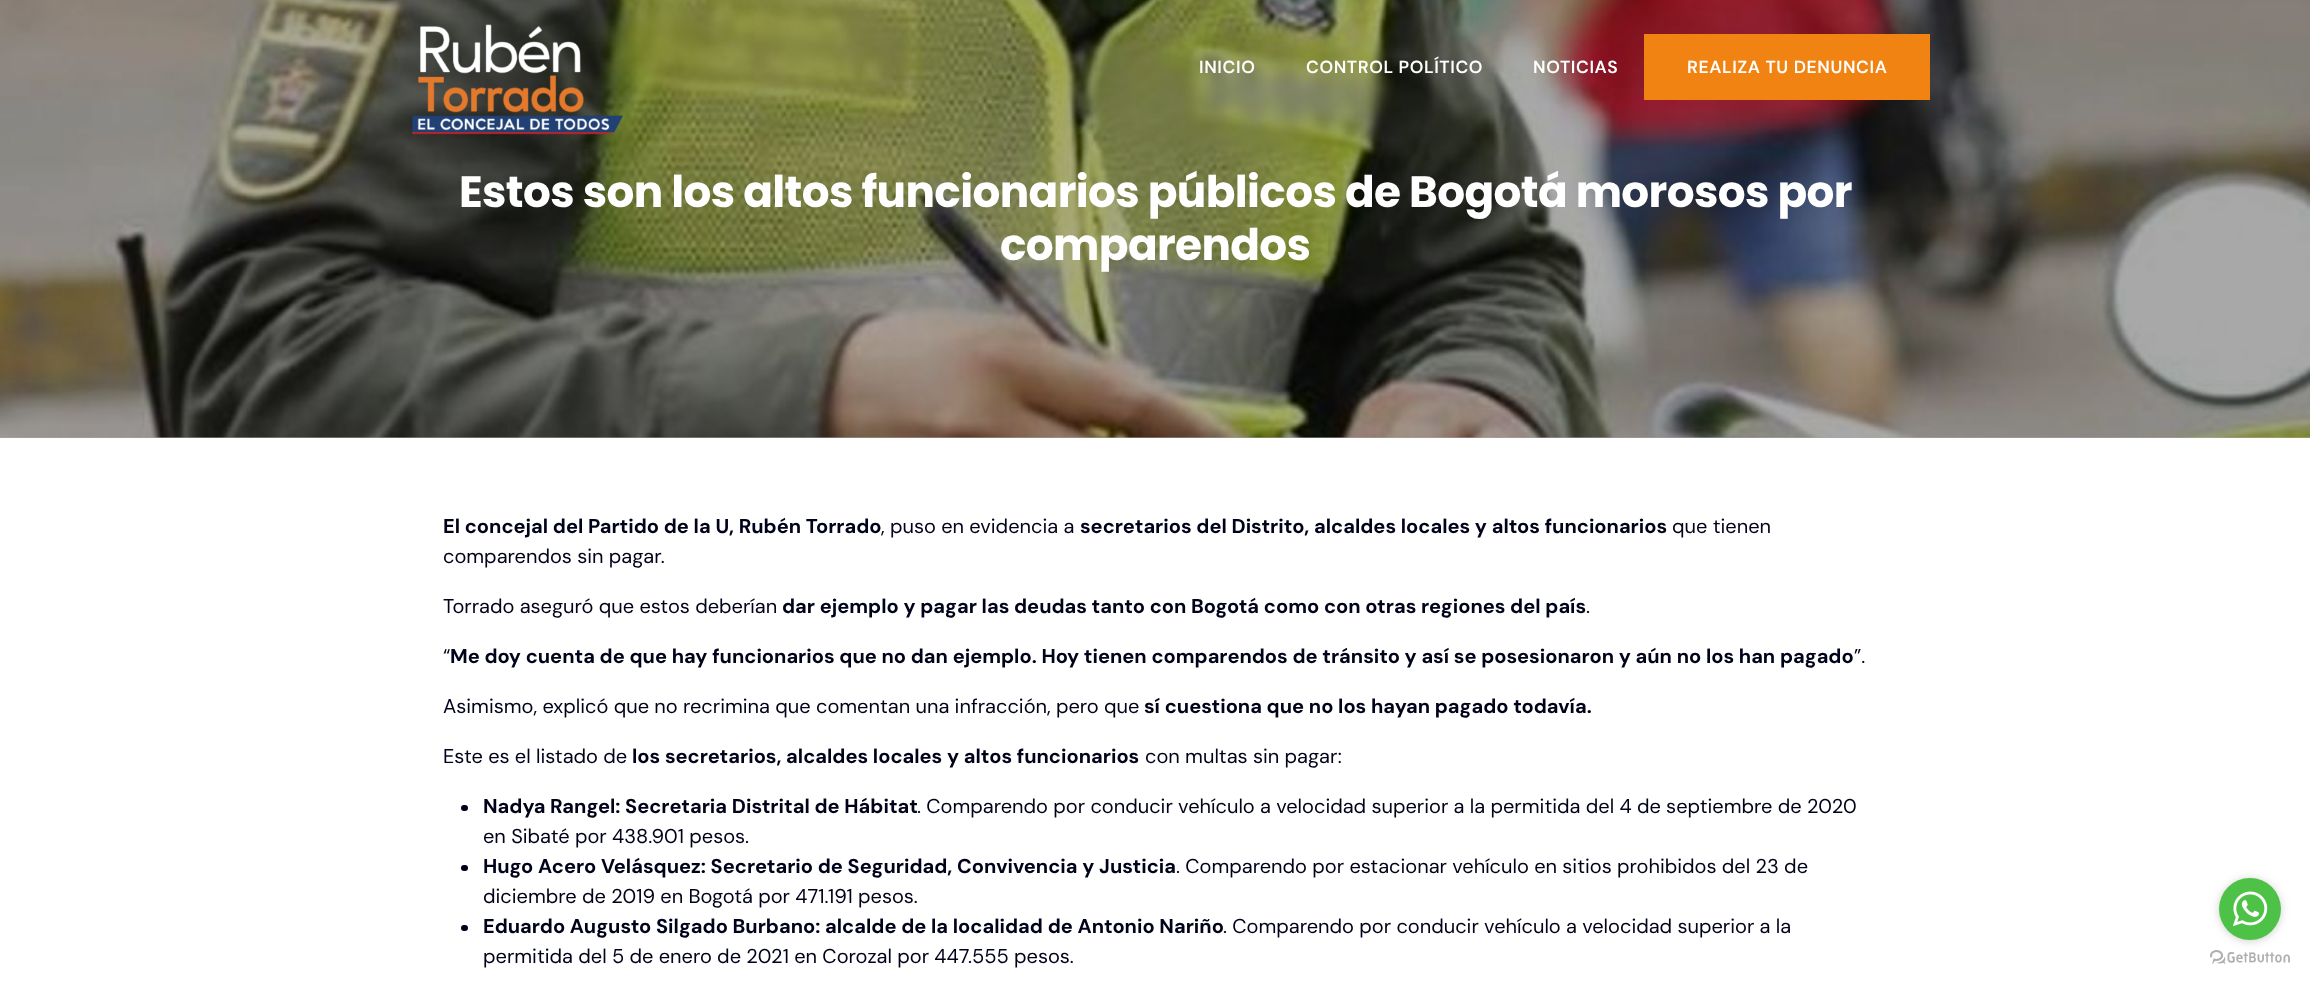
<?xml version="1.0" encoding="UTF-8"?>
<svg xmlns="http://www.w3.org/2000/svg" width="2310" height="981">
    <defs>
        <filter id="blur1" x="-50%" y="-200%" width="200%" height="500%"><feGaussianBlur stdDeviation="4.5"/></filter>
    </defs>
    <rect width="100%" height="100%" fill="#FFFFFF"/>
    <rect x="0" y="437" width="2310" height="1" fill="#A8A8A8"/>
    <image x="0" y="0" width="2310" height="438" href="img_02.png"/>
    <image x="411" y="24" width="212" height="111" href="img_01.png"/>
    <text x="1199" y="73" font-family="DM Sans" font-size="17.5" font-weight="600" letter-spacing="0.6" fill="#FFFFFF">INICIO</text>
    <text x="1306" y="73" font-family="DM Sans" font-size="17.5" font-weight="600" letter-spacing="0.6" fill="#FFFFFF">CONTROL POLÍTICO</text>
    <text x="1533" y="73" font-family="DM Sans" font-size="17.5" font-weight="600" letter-spacing="0.6" fill="#FFFFFF">NOTICIAS</text>
    <rect x="1644" y="34" width="286" height="66" fill="#F18312"/>
    <text x="1687" y="73" font-family="DM Sans" font-size="17.5" font-weight="600" letter-spacing="0.6" fill="#FFFFFF">REALIZA TU DENUNCIA</text>
    <text x="459" y="207" font-family="Poppins" font-size="43.75" font-weight="700" letter-spacing="-0.62" fill="#FFFFFF">Estos son los altos funcionarios públicos de Bogotá morosos por</text>
    <text x="1000" y="260" font-family="Poppins" font-size="43.75" font-weight="700" letter-spacing="-0.62" fill="#FFFFFF">comparendos</text>
    <text x="443" y="533" font-family="DM Sans" font-size="20" font-weight="700" fill="#000219">El concejal del Partido de la U, Rubén Torrado</text>
    <text x="881" y="533" font-family="DM Sans" font-size="20" fill="#000219">, puso en evidencia a</text>
    <text x="1080" y="533" font-family="DM Sans" font-size="20" font-weight="700" fill="#000219">secretarios del Distrito, alcaldes locales y altos funcionarios</text>
    <text x="1672" y="533" font-family="DM Sans" font-size="20" fill="#000219">que tienen</text>
    <text x="443" y="563" font-family="DM Sans" font-size="20" fill="#000219">comparendos sin pagar.</text>
    <text x="443" y="613" font-family="DM Sans" font-size="20" fill="#000219">Torrado aseguró que estos deberían</text>
    <text x="782" y="613" font-family="DM Sans" font-size="20" font-weight="700" fill="#000219">dar ejemplo y pagar las deudas tanto con Bogotá como con otras regiones del país</text>
    <text x="1586" y="613" font-family="DM Sans" font-size="20" fill="#000219">.</text>
    <text x="443" y="663" font-family="DM Sans" font-size="20" fill="#000219">“</text>
    <text x="450" y="663" font-family="DM Sans" font-size="20" font-weight="700" fill="#000219">Me doy cuenta de que hay funcionarios que no dan ejemplo. Hoy tienen comparendos de tránsito y así se posesionaron y aún no los han pagado</text>
    <text x="1854" y="663" font-family="DM Sans" font-size="20" fill="#000219">”.</text>
    <text x="443" y="713" font-family="DM Sans" font-size="20" fill="#000219">Asimismo, explicó que no recrimina que comentan una infracción, pero que</text>
    <text x="1144" y="713" font-family="DM Sans" font-size="20" font-weight="700" fill="#000219">sí cuestiona que no los hayan pagado todavía.</text>
    <text x="443" y="763" font-family="DM Sans" font-size="20" fill="#000219">Este es el listado de</text>
    <text x="632" y="763" font-family="DM Sans" font-size="20" font-weight="700" fill="#000219">los secretarios, alcaldes locales y altos funcionarios</text>
    <text x="1145" y="763" font-family="DM Sans" font-size="20" fill="#000219">con multas sin pagar:</text>
    <rect x="461" y="805" width="7" height="6" rx="3" fill="#000219"/>
    <text x="483" y="813" font-family="DM Sans" font-size="20" font-weight="700" fill="#000219">Nadya Rangel: Secretaria Distrital de Hábitat</text>
    <text x="917" y="813" font-family="DM Sans" font-size="20" fill="#000219">. Comparendo por conducir vehículo a velocidad superior a la permitida del 4 de septiembre de 2020</text>
    <text x="483" y="843" font-family="DM Sans" font-size="20" fill="#000219">en Sibaté por 438.901 pesos.</text>
    <rect x="461" y="865" width="7" height="6" rx="3" fill="#000219"/>
    <text x="483" y="873" font-family="DM Sans" font-size="20" font-weight="700" fill="#000219">Hugo Acero Velásquez: Secretario de Seguridad, Convivencia y Justicia</text>
    <text x="1176" y="873" font-family="DM Sans" font-size="20" fill="#000219">. Comparendo por estacionar vehículo en sitios prohibidos del 23 de</text>
    <text x="483" y="903" font-family="DM Sans" font-size="20" fill="#000219">diciembre de 2019 en Bogotá por 471.191 pesos.</text>
    <rect x="461" y="925" width="7" height="6" rx="3" fill="#000219"/>
    <text x="483" y="933" font-family="DM Sans" font-size="20" font-weight="700" fill="#000219">Eduardo Augusto Silgado Burbano: alcalde de la localidad de Antonio Nariño</text>
    <text x="1223" y="933" font-family="DM Sans" font-size="20" fill="#000219">. Comparendo por conducir vehículo a velocidad superior a la</text>
    <text x="483" y="963" font-family="DM Sans" font-size="20" fill="#000219">permitida del 5 de enero de 2021 en Corozal por 447.555 pesos.</text>
    <image x="2210" y="950" width="80" height="14" href="img_04.png"/>
    <rect x="2219" y="879" width="62" height="62" rx="31" fill="#888888" fill-opacity="0.4" filter="url(#blur1)"/>
    <circle cx="2250" cy="909" r="31" fill="#4DC247"/>
    <image x="2232" y="891" width="36" height="36" href="img_03.png"/>
</svg>
